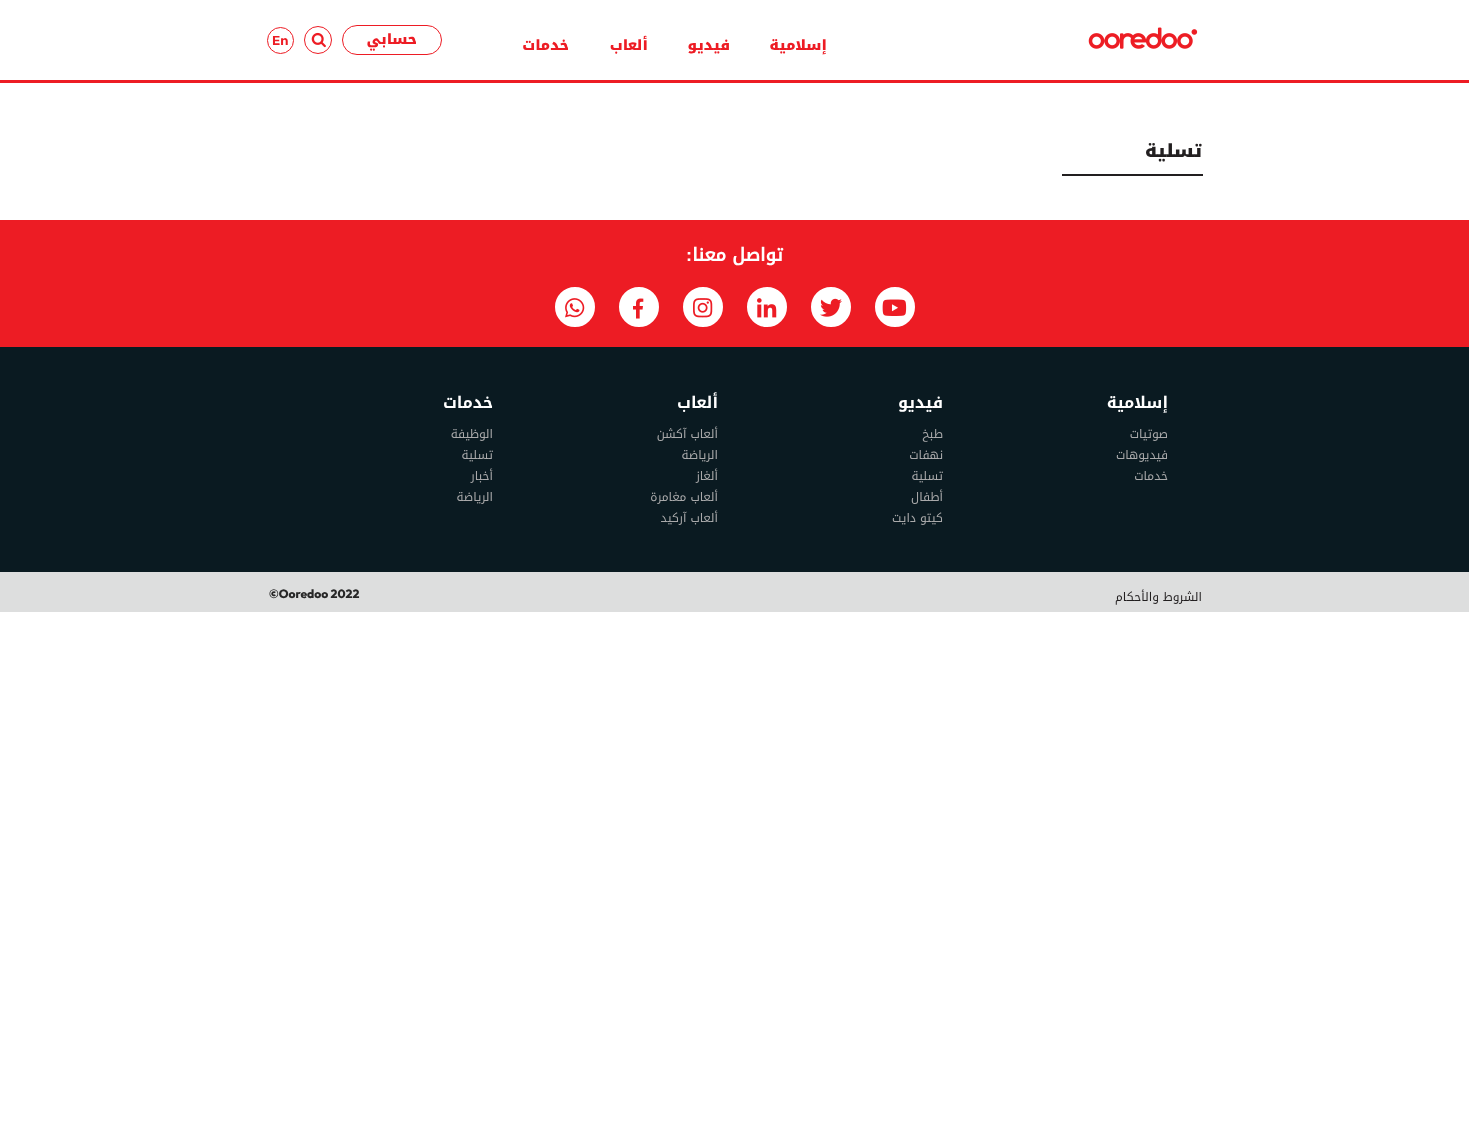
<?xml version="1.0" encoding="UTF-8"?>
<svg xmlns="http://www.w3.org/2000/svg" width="1469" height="1148">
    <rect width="100%" height="100%" fill="#FFFFFF"/>
    <rect x="0" y="80" width="1469" height="3" fill="#ED1C24"/>
    <image x="1088" y="27" width="110" height="22" href="img_01.png"/>
    <text x="827" y="50" font-family="Noto Kufi Arabic" font-size="14" font-weight="900" direction="rtl" fill="#ED1C24">إسلامية</text>
    <text x="730" y="50" font-family="Noto Kufi Arabic" font-size="14" font-weight="900" direction="rtl" fill="#ED1C24">فيديو</text>
    <text x="648" y="50" font-family="Noto Kufi Arabic" font-size="14" font-weight="900" direction="rtl" fill="#ED1C24">ألعاب</text>
    <text x="569" y="50" font-family="Noto Kufi Arabic" font-size="14" font-weight="900" direction="rtl" fill="#ED1C24">خدمات</text>
    <rect x="342.5" y="25.5" width="99" height="29" rx="14.5" fill="none" stroke="#ED1C24"/>
    <text x="417" y="44" font-family="Noto Kufi Arabic" font-size="14" font-weight="900" direction="rtl" fill="#ED1C24">حسابي</text>
    <circle cx="318" cy="40" r="13.5" fill="none" stroke="#ED1C24"/>
    <image x="311" y="32" width="15" height="16" href="img_02.png"/>
    <circle cx="280.5" cy="40.5" r="13" fill="none" stroke="#ED1C24"/>
    <text x="272" y="45" font-family="Rubik" font-size="13" font-weight="600" fill="#ED1C24">En</text>
    <text x="1202" y="157" font-family="Noto Kufi Arabic" font-size="18" font-weight="900" direction="rtl" fill="#221F20">تسلية</text>
    <rect x="1062" y="174" width="141" height="2" fill="#221F20"/>
    <rect x="0" y="220" width="1469" height="127" fill="#ED1C24"/>
    <text x="783" y="261" font-family="Noto Kufi Arabic" font-size="18" font-weight="700" direction="rtl" fill="#FFFFFF">تواصل معنا</text>
    <text x="692" y="261" font-family="Liberation Sans" font-size="18" font-weight="700" direction="rtl" fill="#FFFFFF">:</text>
    <circle cx="895" cy="307" r="19" fill="#FFFFFF" stroke="#FFFFFF" stroke-width="2"/>
    <image x="882" y="299" width="25" height="17" href="img_03.png"/>
    <circle cx="831" cy="307" r="19" fill="#FFFFFF" stroke="#FFFFFF" stroke-width="2"/>
    <image x="820" y="298" width="22" height="19" href="img_04.png"/>
    <circle cx="767" cy="307" r="19" fill="#FFFFFF" stroke="#FFFFFF" stroke-width="2"/>
    <image x="757" y="298" width="20" height="20" href="img_05.png"/>
    <circle cx="703" cy="307" r="19" fill="#FFFFFF" stroke="#FFFFFF" stroke-width="2"/>
    <image x="693" y="298" width="20" height="20" href="img_06.png"/>
    <circle cx="639" cy="307" r="19" fill="#FFFFFF" stroke="#FFFFFF" stroke-width="2"/>
    <image x="633" y="298" width="11" height="21" href="img_07.png"/>
    <circle cx="575" cy="307" r="19" fill="#FFFFFF" stroke="#FFFFFF" stroke-width="2"/>
    <image x="565" y="298" width="20" height="20" href="img_08.png"/>
    <rect x="0" y="347" width="1469" height="225" fill="#0A1A21"/>
    <text x="1168" y="408" font-family="'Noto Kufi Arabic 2'" font-size="16" font-weight="700" direction="rtl" fill="#FFFFFF">إسلامية</text>
    <text font-family="Noto Kufi Arabic" font-size="12" direction="rtl" fill="#A9A9AA">
        <tspan x="1168" y="438">صوتيات</tspan>
        <tspan x="1168" y="459">فيديوهات</tspan>
        <tspan x="1168" y="480">خدمات</tspan>
    </text>
    <text x="943" y="408" font-family="'Noto Kufi Arabic 2'" font-size="16" font-weight="700" direction="rtl" fill="#FFFFFF">فيديو</text>
    <text font-family="Noto Kufi Arabic" font-size="12" direction="rtl" fill="#A9A9AA">
        <tspan x="943" y="438">طبخ</tspan>
        <tspan x="943" y="459">نهفات</tspan>
        <tspan x="943" y="480">تسلية</tspan>
        <tspan x="943" y="501">أطفال</tspan>
        <tspan x="943" y="522">كيتو دايت</tspan>
    </text>
    <text x="718" y="408" font-family="'Noto Kufi Arabic 2'" font-size="16" font-weight="700" direction="rtl" fill="#FFFFFF">ألعاب</text>
    <text font-family="Noto Kufi Arabic" font-size="12" direction="rtl" fill="#A9A9AA">
        <tspan x="718" y="438">ألعاب آكشن</tspan>
        <tspan x="718" y="459">الرياضة</tspan>
        <tspan x="718" y="480">ألغاز</tspan>
        <tspan x="718" y="501">ألعاب مغامرة</tspan>
        <tspan x="718" y="522">ألعاب آركيد</tspan>
    </text>
    <text x="493" y="408" font-family="'Noto Kufi Arabic 2'" font-size="16" font-weight="700" direction="rtl" fill="#FFFFFF">خدمات</text>
    <text font-family="Noto Kufi Arabic" font-size="12" direction="rtl" fill="#A9A9AA">
        <tspan x="493" y="438">الوظيفة</tspan>
        <tspan x="493" y="459">تسلية</tspan>
        <tspan x="493" y="480">أخبار</tspan>
        <tspan x="493" y="501">الرياضة</tspan>
    </text>
    <rect x="0" y="572" width="1469" height="40" fill="#DDDEDE"/>
    <text x="1202" y="601" font-family="Noto Kufi Arabic" font-size="12" direction="rtl" fill="#221F20">الشروط والأحكام</text>
    <text x="269" y="598" font-family="Outfit" font-size="12" font-weight="800" fill="#272727">©Ooredoo 2022</text>
</svg>
